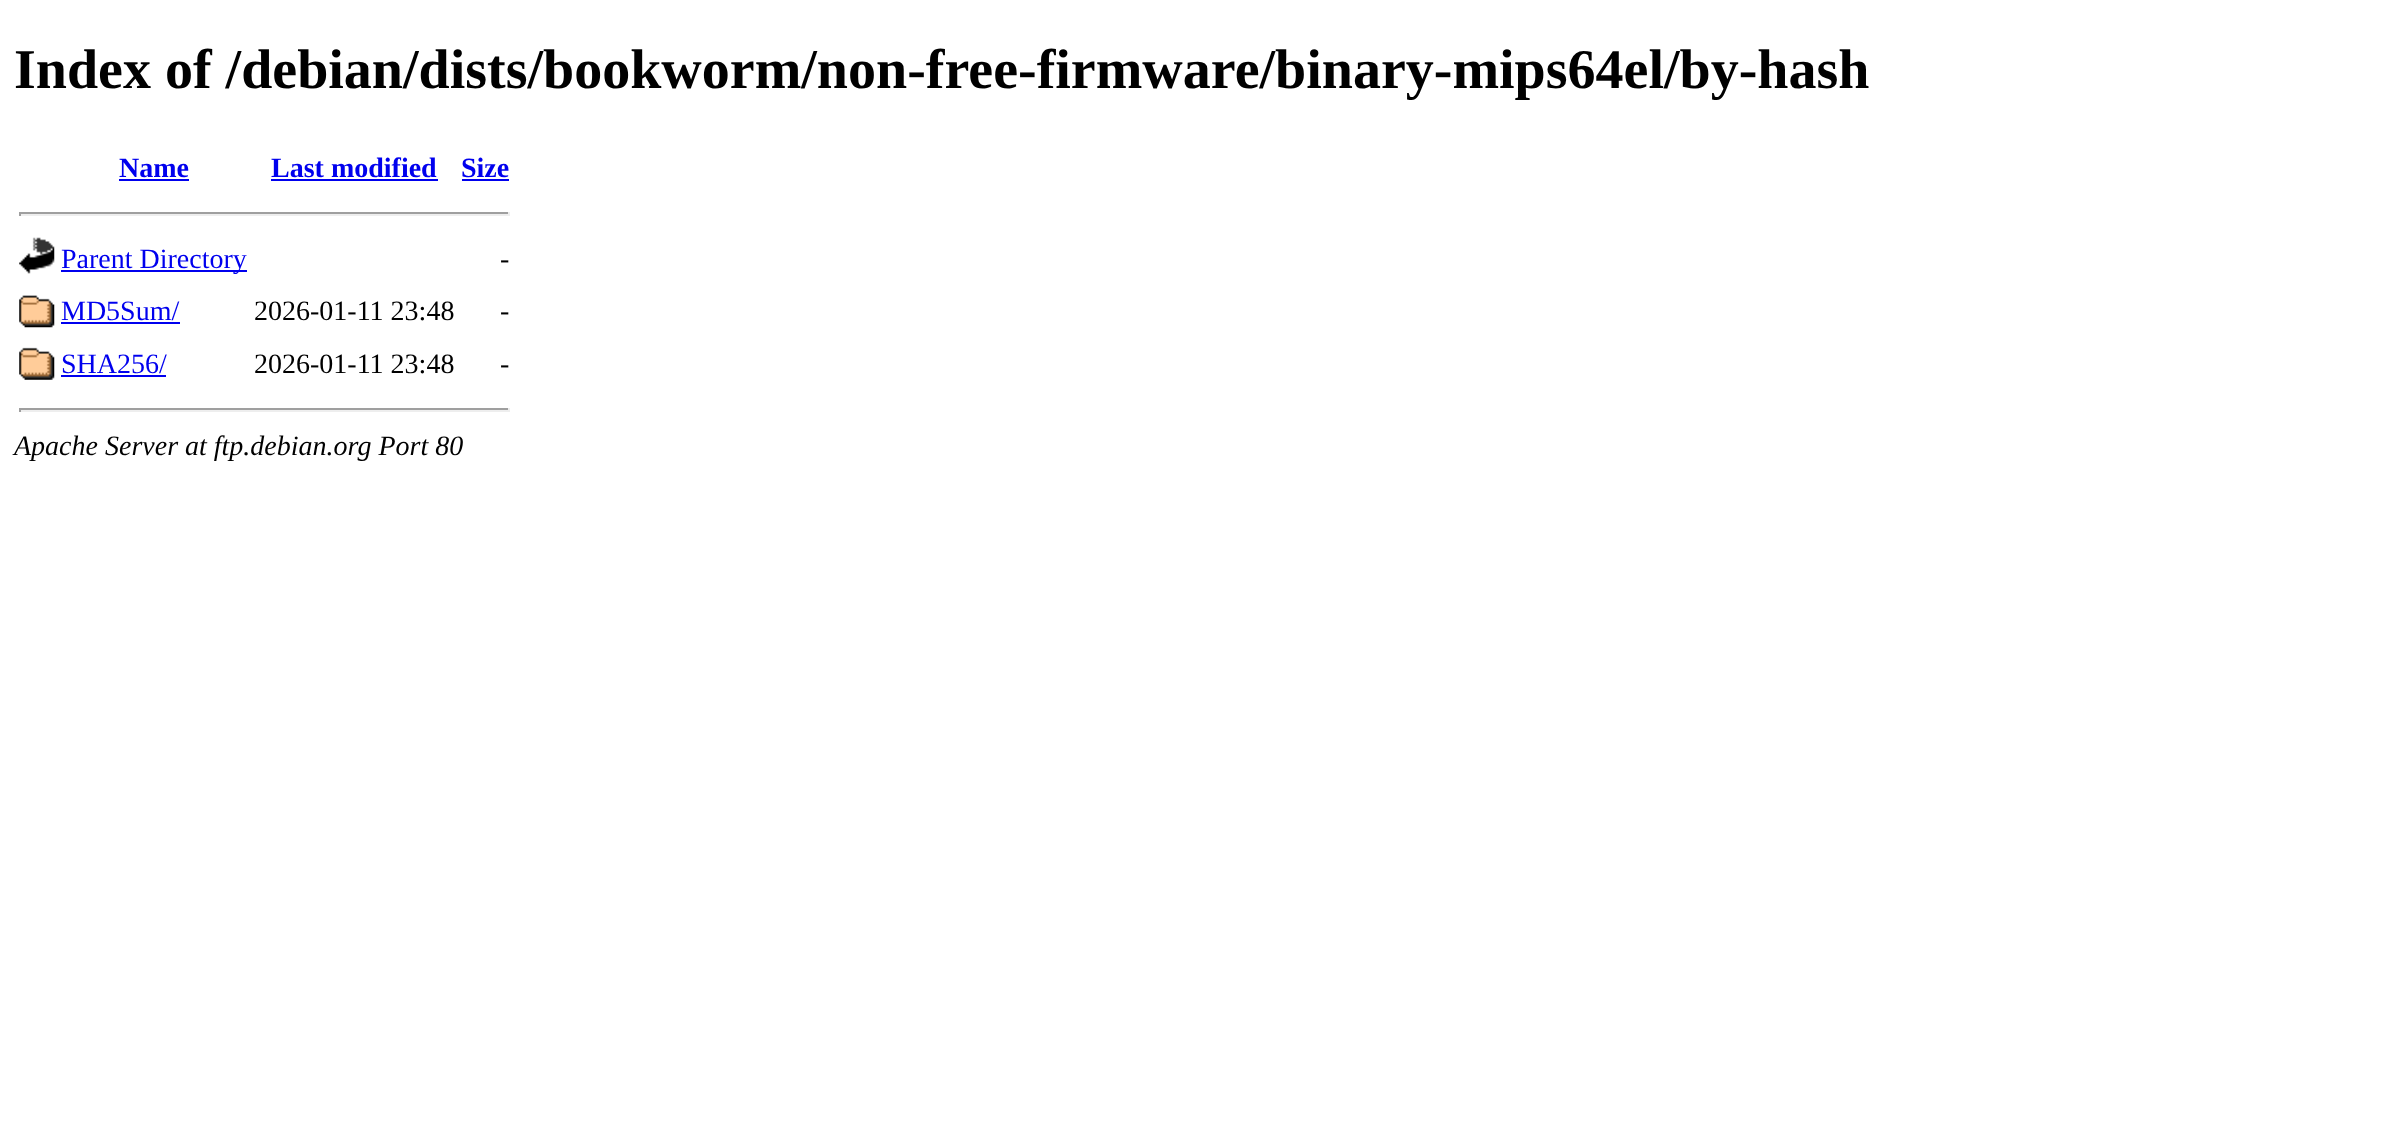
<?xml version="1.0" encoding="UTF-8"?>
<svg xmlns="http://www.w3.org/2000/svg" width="2408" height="1146">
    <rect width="100%" height="100%" fill="#FFFFFF"/>
    <text x="14" y="88" font-family="Liberation Serif" font-size="56" font-weight="700" fill="#000000">Index of /debian/dists/bookworm/non-free-firmware/binary-mips64el/by-hash</text>
    <text x="119" y="177" font-family="Liberation Serif" font-size="28" font-weight="700" fill="#0000EE">Name</text>
    <rect x="119" y="179" width="70" height="2" fill="#0000EE"/>
    <text x="271" y="177" font-family="Liberation Serif" font-size="28" font-weight="700" fill="#0000EE">Last modified</text>
    <rect x="271" y="179" width="167" height="2" fill="#0000EE"/>
    <text x="461" y="177" font-family="Liberation Serif" font-size="28" font-weight="700" fill="#0000EE">Size</text>
    <rect x="462" y="179" width="47" height="2" fill="#0000EE"/>
    <rect x="19" y="212" width="490" height="2" fill="#9F9F9F"/>
    <rect x="508" y="212" width="2" height="4" fill="#EEEEEE"/>
    <rect x="19" y="214" width="490" height="2" fill="#EEEEEE"/>
    <rect x="19" y="212" width="2" height="4" fill="#9F9F9F"/>
    <image x="19" y="237" width="36" height="37" href="img_01.png"/>
    <rect x="61" y="270" width="186" height="2" fill="#0000EE"/>
    <text x="61" y="268" font-family="Liberation Serif" font-size="28" fill="#0000EE">Parent Directory</text>
    <text x="500" y="268" font-family="Liberation Serif" font-size="28" fill="#000000">-</text>
    <image x="19" y="295" width="36" height="33" href="img_02.png"/>
    <text x="61" y="320" font-family="Liberation Serif" font-size="28" fill="#0000EE">MD5Sum/</text>
    <rect x="61" y="322" width="119" height="2" fill="#0000EE"/>
    <text x="254" y="320" font-family="Liberation Serif" font-size="28" fill="#000000">2026-01-11 23:48</text>
    <text x="500" y="320" font-family="Liberation Serif" font-size="28" fill="#000000">-</text>
    <image x="19" y="347" width="36" height="33" href="img_03.png"/>
    <text x="61" y="373" font-family="Liberation Serif" font-size="28" fill="#0000EE">SHA256/</text>
    <rect x="61" y="375" width="105" height="2" fill="#0000EE"/>
    <text x="254" y="373" font-family="Liberation Serif" font-size="28" fill="#000000">2026-01-11 23:48</text>
    <text x="500" y="373" font-family="Liberation Serif" font-size="28" fill="#000000">-</text>
    <rect x="19" y="408" width="490" height="2" fill="#9F9F9F"/>
    <rect x="508" y="408" width="2" height="4" fill="#EEEEEE"/>
    <rect x="19" y="410" width="490" height="2" fill="#EEEEEE"/>
    <rect x="19" y="408" width="2" height="4" fill="#9F9F9F"/>
    <text x="14" y="455" font-family="Liberation Serif" font-size="28" font-style="italic" fill="#000000">Apache Server at ftp.debian.org Port 80</text>
</svg>
